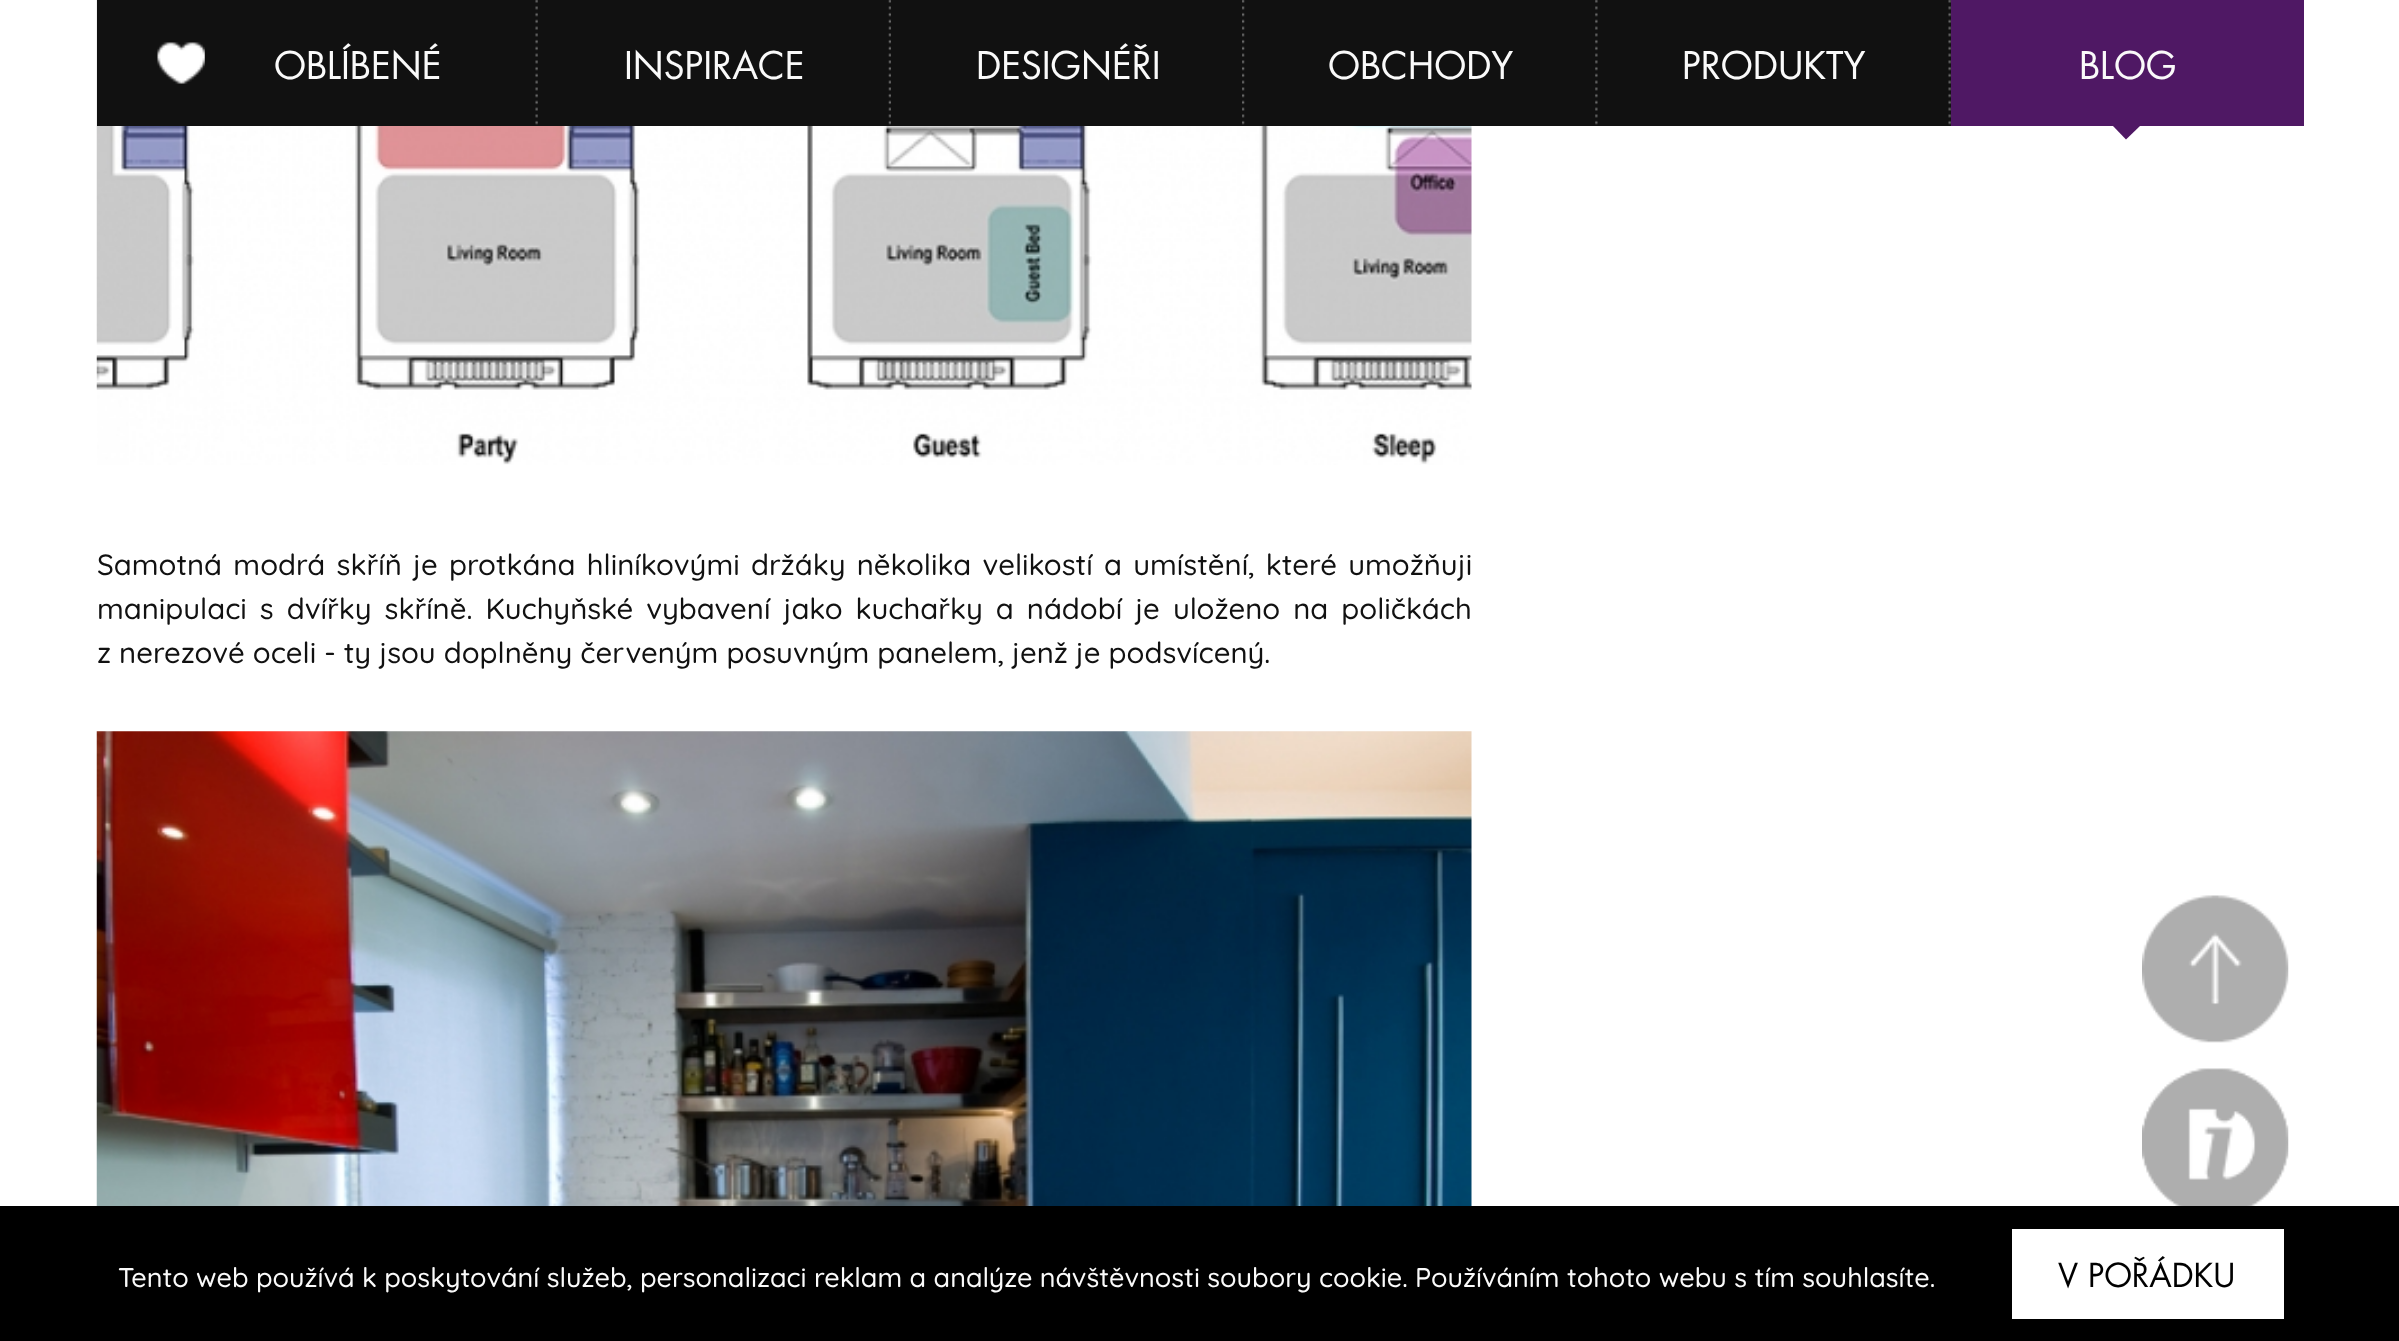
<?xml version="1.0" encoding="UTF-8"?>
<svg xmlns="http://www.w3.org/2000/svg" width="2399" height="1341">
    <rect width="100%" height="100%" fill="#FFFFFF"/>
    <image x="96" y="0" width="1376" height="465" href="img_06.png"/>
    <rect x="97" y="0" width="1854" height="126" fill="#111111"/>
    <image x="535" y="0" width="3" height="125" href="img_01.png"/>
    <image x="157" y="42" width="48" height="42" href="img_02.png"/>
    <text x="274" y="79" font-family="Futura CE" font-size="33.75" fill="#FAFAFA">OBLÍBENÉ</text>
    <image x="888" y="0" width="3" height="125" href="img_03.png"/>
    <text x="624" y="79" font-family="Futura CE" font-size="33.75" fill="#FAFAFA">INSPIRACE</text>
    <image x="1242" y="0" width="3" height="125" href="img_04.png"/>
    <text x="976" y="79" font-family="Futura CE" font-size="33.75" fill="#FAFAFA">DESIGNÉŘI</text>
    <image x="1595" y="0" width="3" height="125" href="img_05.png"/>
    <text x="1328" y="79" font-family="Futura CE" font-size="33.75" fill="#FAFAFA">OBCHODY</text>
    <image x="1948" y="0" width="3" height="125" href="img_01.png"/>
    <text x="1682" y="79" font-family="Futura CE" font-size="33.75" fill="#FAFAFA">PRODUKTY</text>
    <rect x="1951" y="0" width="353" height="126" fill="#4F1864"/>
    <text x="2079" y="79" font-family="Futura CE" font-size="33.75" fill="#FAFAFA">BLOG</text>
    <path d="M 2113 126 H 2140 L 2126 139.5 Z" fill="#4F1864"/>
    <text font-family="Quicksand" font-size="29.25" font-weight="500" fill="#111111">
        <tspan x="97" y="575" word-spacing="3.25">Samotná modrá skříň je protkána hliníkovými držáky několika velikostí a umístění, které umožňuji</tspan>
        <tspan x="97" y="619" word-spacing="5">manipulaci s dvířky skříně. Kuchyňské vybavení jako kuchařky a nádobí je uloženo na poličkách</tspan>
        <tspan x="97" y="663">z nerezové oceli - ty jsou doplněny červeným posuvným panelem, jenž je podsvícený.</tspan>
    </text>
    <image x="96" y="731" width="1376" height="475" href="img_07.png"/>
    <image x="2142" y="895" width="147" height="148" href="img_08.png"/>
    <image x="2142" y="1068" width="147" height="138" href="img_09.png"/>
    <rect x="0" y="1206" width="2399" height="135" fill="#000000"/>
    <text x="118" y="1287" font-family="Quicksand" font-size="27" font-weight="500" fill="#FAFAFA">Tento web používá k poskytování služeb, personalizaci reklam a analýze návštěvnosti soubory cookie. Používáním tohoto webu s tím souhlasíte.</text>
    <rect x="2012" y="1229" width="272" height="90" fill="#FFFFFF"/>
    <text x="2058" y="1287" font-family="Futura CE" font-size="29.25" fill="#000000">V POŘÁDKU</text>
</svg>
